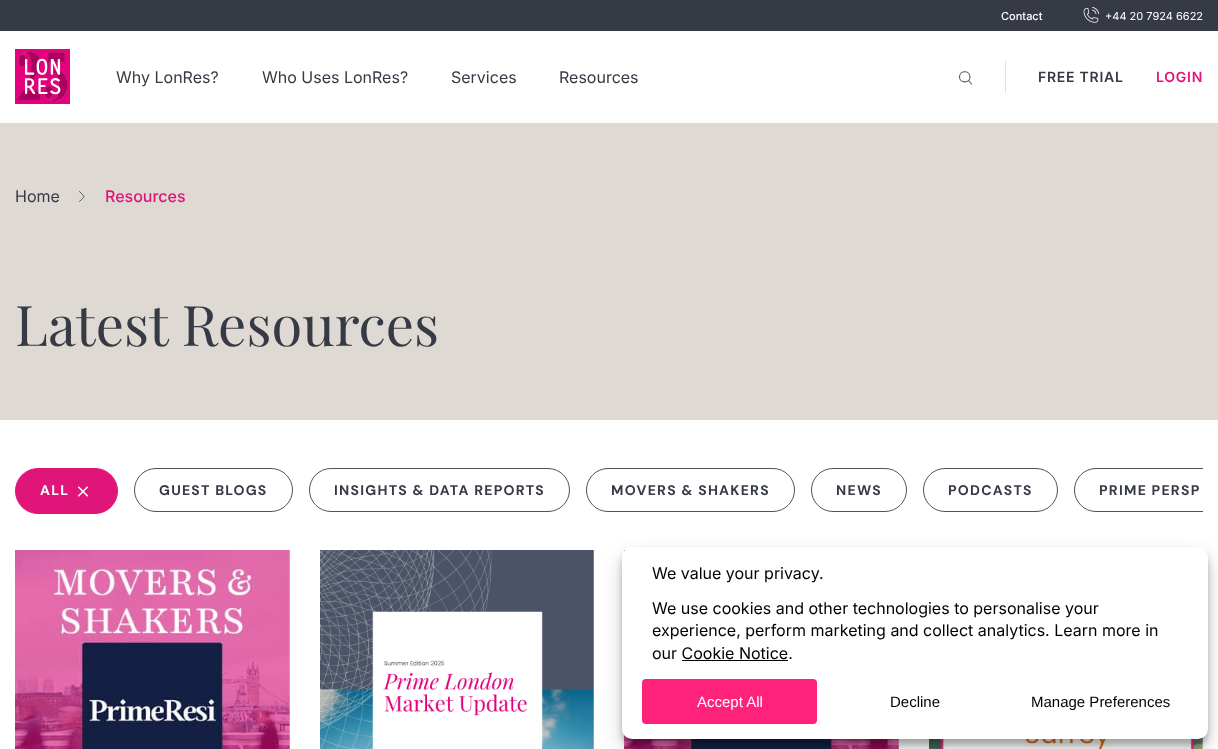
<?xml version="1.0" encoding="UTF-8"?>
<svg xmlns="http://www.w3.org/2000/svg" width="1218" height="749">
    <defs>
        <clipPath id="clip1"><rect x="15" y="468" width="1188" height="46"/></clipPath>
        <filter id="blur1" x="-50%" y="-200%" width="200%" height="500%"><feGaussianBlur stdDeviation="3"/></filter>
        <filter id="blur2" x="-50%" y="-200%" width="200%" height="500%"><feGaussianBlur stdDeviation="10"/></filter>
    </defs>
    <rect width="100%" height="100%" fill="#FFFFFF"/>
    <rect x="0" y="0" width="1218" height="31" fill="#363A45"/>
    <text x="1001" y="20" font-family="Inter" font-size="11" font-weight="500" fill="#FFFFFF">Contact</text>
    <image x="1083" y="7" width="16" height="16" href="img_01.png"/>
    <text x="1105" y="20" font-family="Inter" font-size="11" fill="#FFFFFF">+44 20 7924 6622</text>
    <image x="15" y="49" width="55" height="55" href="img_02.png"/>
    <text x="116" y="83" font-family="Inter" font-size="16" fill="#363A45">Why LonRes?</text>
    <text x="262" y="83" font-family="Inter" font-size="16" fill="#363A45">Who Uses LonRes?</text>
    <text x="451" y="83" font-family="Inter" font-size="16" fill="#363A45">Services</text>
    <text x="559" y="83" font-family="Inter" font-size="16" fill="#363A45">Resources</text>
    <path d="M 971.5 84 L 968.5 80.5 M 959.5 77 C 959.5 70 970 70 970 77 C 970 83.5 959.5 83.5 959.5 77 Z" fill="none" stroke="#585858" stroke-width="1.1" stroke-linecap="round" stroke-linejoin="round"/>
    <rect x="1005" y="61" width="1" height="32" fill="#E0E0E0"/>
    <text x="1038" y="82" font-family="Inter" font-size="14" font-weight="600" letter-spacing="0.75" fill="#363A45">FREE TRIAL</text>
    <text x="1156" y="82" font-family="Inter" font-size="14" font-weight="600" letter-spacing="0.75" fill="#E0157A">LOGIN</text>
    <rect x="0" y="123" width="1218" height="297" fill="#DEDAD3"/>
    <text x="15" y="202" font-family="Inter" font-size="16" fill="#363A45">Home</text>
    <path d="M 79.5 201.5 C 85.5 195 85.5 198 79.5 191.5" fill="none" stroke="#363A45" stroke-width="0.8" stroke-linecap="round" stroke-linejoin="round"/>
    <text x="105" y="202" font-family="Inter" font-size="16" font-weight="500" fill="#E0157A">Resources</text>
    <text x="15" y="346" font-family="Playfair Display" font-size="56" fill="#363A45">Latest Resources</text>
    <rect x="15.5" y="468.5" width="102" height="45" rx="22.5" fill="#E0157A" stroke="#E0157A"/>
    <text x="40" y="495" font-family="DM Sans" font-size="14" font-weight="700" letter-spacing="1.25" fill="#FFFFFF">ALL</text>
    <image x="77" y="486" width="12" height="11" href="img_03.png"/>
    <rect x="134.5" y="468.5" width="158" height="43" rx="21.5" fill="none" stroke="#535353"/>
    <text x="159" y="495" font-family="DM Sans" font-size="14" font-weight="700" letter-spacing="1.25" fill="#363A45">GUEST BLOGS</text>
    <rect x="309.5" y="468.5" width="260" height="43" rx="21.5" fill="none" stroke="#535353"/>
    <text x="334" y="495" font-family="DM Sans" font-size="14" font-weight="700" letter-spacing="1.25" fill="#363A45">INSIGHTS &amp; DATA REPORTS</text>
    <rect x="586.5" y="468.5" width="208" height="43" rx="21.5" fill="none" stroke="#535353"/>
    <text x="611" y="495" font-family="DM Sans" font-size="14" font-weight="700" letter-spacing="1.25" fill="#363A45">MOVERS &amp; SHAKERS</text>
    <rect x="811.5" y="468.5" width="95" height="43" rx="21.5" fill="none" stroke="#535353"/>
    <text x="836" y="495" font-family="DM Sans" font-size="14" font-weight="700" letter-spacing="1.25" fill="#363A45">NEWS</text>
    <rect x="923.5" y="468.5" width="134" height="43" rx="21.5" fill="none" stroke="#535353"/>
    <text x="948" y="495" font-family="DM Sans" font-size="14" font-weight="700" letter-spacing="1.25" fill="#363A45">PODCASTS</text>
    <g clip-path="url(#clip1)">
        <rect x="1074.5" y="468.5" width="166" height="43" rx="21.5" fill="none" stroke="#535353"/>
    </g>
    <text x="1099" y="495" font-family="DM Sans" font-size="14" font-weight="700" letter-spacing="1.25" fill="#363A45">PRIME PERSP</text>
    <image x="15" y="550" width="275" height="199" href="img_04.png"/>
    <image x="320" y="550" width="274" height="199" href="img_05.png"/>
    <image x="624" y="550" width="275" height="199" href="img_06.png"/>
    <image x="929" y="737" width="274" height="12" href="img_07.png"/>
    <rect x="622" y="553" width="586" height="192" rx="10" fill="#000000" fill-opacity="0.23" filter="url(#blur1)"/>
    <rect x="622" y="557" width="586" height="192" rx="10" fill="#000000" fill-opacity="0.19" filter="url(#blur2)"/>
    <rect x="622" y="547" width="586" height="192" rx="10" fill="#FFFFFF"/>
    <text x="652" y="579" font-family="Inter" font-size="16" fill="#000000">We value your privacy.</text>
    <text font-family="Inter" font-size="16" fill="#000000">
        <tspan x="652" y="614">We use cookies and other technologies to personalise your</tspan>
        <tspan x="652" y="636">experience, perform marketing and collect analytics. Learn more in</tspan>
        <tspan x="652" y="659">our Cookie Notice.</tspan>
    </text>
    <rect x="682" y="660" width="106" height="1" fill="#000000"/>
    <rect x="642" y="679" width="175" height="45" rx="4" fill="#FF227B"/>
    <text x="697" y="707" font-family="Liberation Sans" font-size="15" fill="#FFFFFF">Accept All</text>
    <text x="890" y="707" font-family="Liberation Sans" font-size="15" fill="#000000">Decline</text>
    <text x="1031" y="707" font-family="Liberation Sans" font-size="15" fill="#000000">Manage Preferences</text>
</svg>
